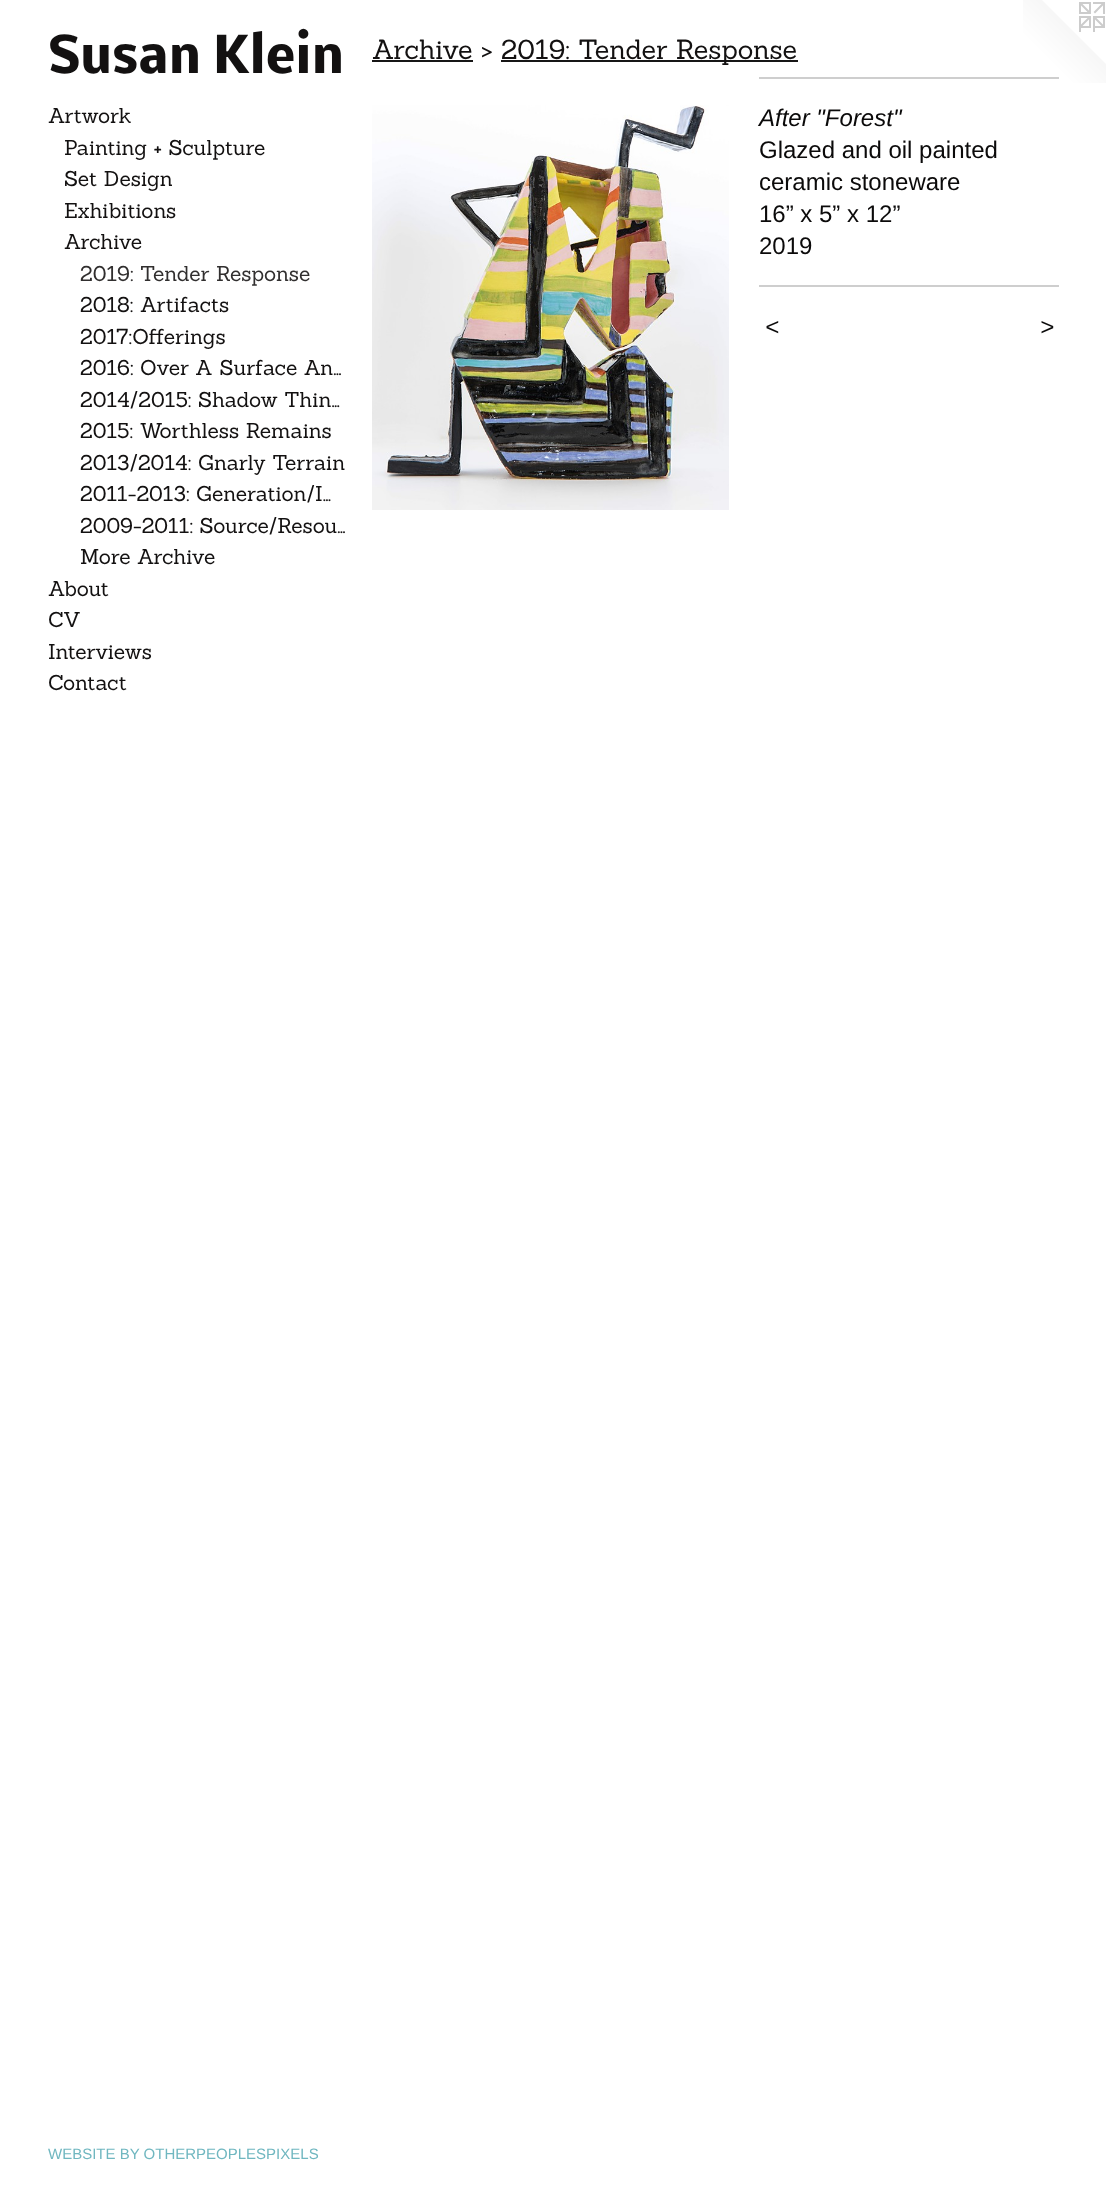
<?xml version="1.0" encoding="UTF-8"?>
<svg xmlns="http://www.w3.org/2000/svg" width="1106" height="2199">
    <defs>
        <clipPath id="clip1"><rect x="65" y="132" width="283" height="32"/></clipPath>
        <clipPath id="clip2"><rect x="65" y="164" width="283" height="31"/></clipPath>
        <clipPath id="clip3"><rect x="65" y="195" width="283" height="32"/></clipPath>
    </defs>
    <rect width="100%" height="100%" fill="#FFFFFF"/>
    <text x="48" y="73" font-family="Nobile" font-size="48" font-weight="700" fill="#131111">Susan Klein</text>
    <text x="48" y="123" font-family="Sanchez" font-size="21" fill="#131111">Artwork</text>
    <g clip-path="url(#clip1)">
        <text x="64" y="155" font-family="Sanchez" font-size="21" fill="#131111">Painting + Sculpture</text>
    </g>
    <g clip-path="url(#clip2)">
        <text x="64" y="186" font-family="Sanchez" font-size="21" fill="#131111">Set Design</text>
    </g>
    <g clip-path="url(#clip3)">
        <text x="64" y="218" font-family="Sanchez" font-size="21" fill="#131111">Exhibitions</text>
    </g>
    <text x="64" y="249" font-family="Sanchez" font-size="21" fill="#131111">Archive</text>
    <text x="80" y="281" font-family="Sanchez" font-size="21" fill="#312F2F">2019: Tender Response</text>
    <text font-family="Sanchez" font-size="21" fill="#131111">
        <tspan x="80" y="312">2018: Artifacts</tspan>
        <tspan x="80" y="344">2017:Offerings</tspan>
        <tspan x="80" y="375">2016: Over A Surface An…</tspan>
        <tspan x="80" y="407">2014/2015: Shadow Thin…</tspan>
        <tspan x="80" y="438">2015: Worthless Remains</tspan>
        <tspan x="80" y="470">2013/2014: Gnarly Terrain</tspan>
        <tspan x="80" y="501">2011-2013: Generation/I…</tspan>
        <tspan x="80" y="533">2009-2011: Source/Resou…</tspan>
        <tspan x="80" y="564">More Archive</tspan>
    </text>
    <text font-family="Sanchez" font-size="21" fill="#131111">
        <tspan x="48" y="596">About</tspan>
        <tspan x="48" y="627">CV</tspan>
        <tspan x="48" y="659">Interviews</tspan>
        <tspan x="48" y="690">Contact</tspan>
    </text>
    <text x="48" y="2159" font-family="Liberation Sans" font-size="15" fill="#70B7C0">WEBSITE BY OTHERPEOPLESPIXELS</text>
    <text x="372" y="59" font-family="Sanchez" font-size="27" fill="#131111">Archive &gt;</text>
    <rect x="372" y="60" width="101" height="2" fill="#171616"/>
    <rect x="501" y="60" width="297" height="2" fill="#171616"/>
    <text x="501" y="59" font-family="Sanchez" font-size="27" fill="#131111">2019: Tender Response</text>
    <image x="372" y="105" width="357" height="405" href="img_01.png"/>
    <image x="1023" y="0" width="83" height="83" href="img_02.png"/>
    <rect x="759" y="77" width="300" height="2" fill="#CECECE"/>
    <text x="759" y="126" font-family="Liberation Sans" font-size="24" font-style="italic" fill="#0B0A0A">After "Forest"</text>
    <text font-family="Liberation Sans" font-size="24" fill="#0B0A0A">
        <tspan x="759" y="158">Glazed and oil painted</tspan>
        <tspan x="759" y="190">ceramic stoneware</tspan>
        <tspan x="759" y="222">16” x 5” x 12”</tspan>
        <tspan x="759" y="254">2019</tspan>
    </text>
    <rect x="759" y="285" width="300" height="2" fill="#CECECE"/>
    <text x="765" y="335" font-family="Liberation Sans" font-size="24" font-style="italic" letter-spacing="2" fill="#0B0A0A">&lt;</text>
    <text x="1040" y="335" font-family="Liberation Sans" font-size="24" font-style="italic" letter-spacing="2" fill="#0B0A0A">&gt;</text>
</svg>
